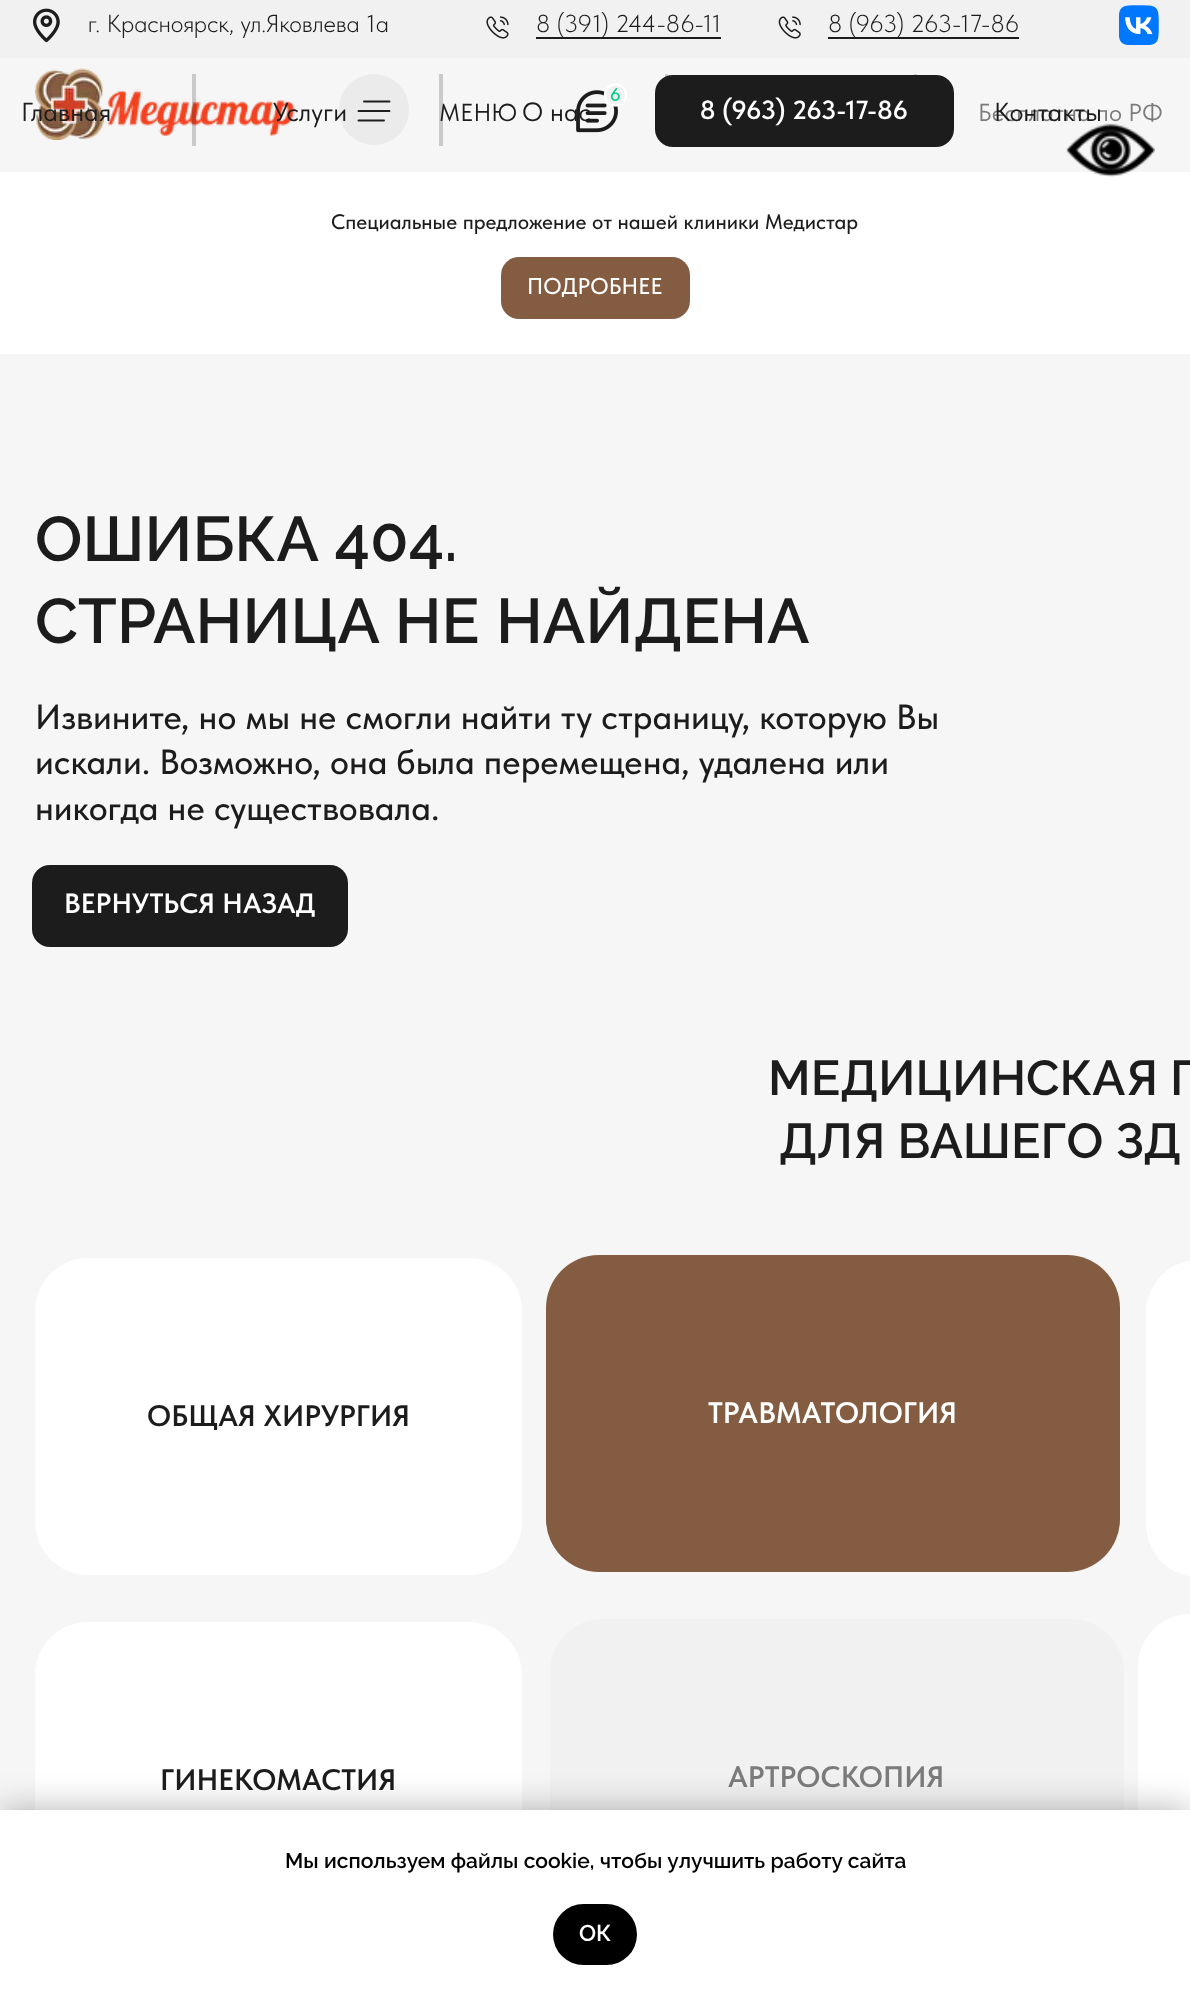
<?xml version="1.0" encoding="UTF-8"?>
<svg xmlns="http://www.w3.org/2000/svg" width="1190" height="2000">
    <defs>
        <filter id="blur1" x="-50%" y="-200%" width="200%" height="500%"><feGaussianBlur stdDeviation="17.5"/></filter>
    </defs>
    <rect width="100%" height="100%" fill="#FFFFFF"/>
    <rect x="0" y="58" width="1190" height="114" fill="#F6F6F6"/>
    <rect x="914" y="74" width="3" height="1" fill="#CBCBCB"/>
    <rect x="0" y="0" width="1190" height="58" fill="#F1F1F1"/>
    <image x="33" y="8" width="27" height="35" href="img_01.png"/>
    <text x="88" y="32" font-family="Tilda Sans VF" font-size="24.5" font-weight="300" fill="#1C1C1C">г. Красноярск, ул.Яковлева 1а</text>
    <image x="486" y="16" width="23" height="23" href="img_02.png"/>
    <rect x="536" y="37" width="185" height="2" fill="#1C1C1C"/>
    <text x="536" y="32" font-family="Tilda Sans VF" font-size="24.5" font-weight="300" fill="#1C1C1C">8 (391) 244-86-11</text>
    <image x="778" y="16" width="23" height="23" href="img_03.png"/>
    <rect x="828" y="37" width="191" height="2" fill="#1C1C1C"/>
    <text x="828" y="32" font-family="Tilda Sans VF" font-size="24.5" font-weight="300" fill="#1C1C1C">8 (963) 263-17-86</text>
    <image x="1119" y="5" width="40" height="40" href="img_04.png"/>
    <image x="35" y="68" width="260" height="72" href="img_05.png"/>
    <text x="21" y="121" font-family="Tilda Sans VF" font-size="26.25" fill="#1C1C1C">Главная</text>
    <rect x="192" y="74" width="4" height="72" fill="#1E1E1E" fill-opacity="0.2"/>
    <rect x="339" y="74" width="70" height="71" rx="35" fill="#EBEBEB"/>
    <text x="273" y="121" font-family="Tilda Sans VF" font-size="26.25" fill="#1C1C1C">Услуги</text>
    <path d="M 364 101.5 H 389.5 M 358.5 111 H 389.5 M 358.5 120.5 H 384" fill="none" stroke="#1E1E1E" stroke-width="1.9" stroke-linecap="round"/>
    <text x="439" y="121" font-family="Tilda Sans VF" font-size="24.5" fill="#1C1C1C">МЕНЮ</text>
    <rect x="439" y="74" width="4" height="72" fill="#1E1E1E" fill-opacity="0.2"/>
    <image x="576" y="83" width="51" height="50" href="img_06.png"/>
    <text x="522" y="121" font-family="Tilda Sans VF" font-size="26.25" fill="#1C1C1C">О нас</text>
    <rect x="655" y="75" width="299" height="72" rx="18" fill="#1C1C1C"/>
    <rect x="665" y="74" width="3" height="72" fill="#1E1E1E" fill-opacity="0.2"/>
    <text x="700" y="119" font-family="Tilda Sans VF" font-size="26.25" font-weight="600" fill="#FFFFFF">8 (963) 263-17-86</text>
    <text x="978" y="121" font-family="Tilda Sans VF" font-size="24.5" fill="#7B7B7B">Бесплатно по РФ</text>
    <text x="994" y="121" font-family="Tilda Sans VF" font-size="26.25" fill="#1C1C1C">Контакты</text>
    <text x="331" y="229" font-family="Tilda Sans VF" font-size="21" font-weight="500" fill="#1C1C1C">Специальные предложение от нашей клиники Медистар</text>
    <rect x="501" y="257" width="189" height="62" rx="18" fill="#845C42"/>
    <text x="527" y="294" font-family="Tilda Sans VF" font-size="22.75" font-weight="500" fill="#FFFFFF">ПОДРОБНЕЕ</text>
    <rect x="0" y="354" width="1190" height="1456" fill="#F6F6F6"/>
    <text font-family="Raleway" font-size="63" font-weight="600" fill="#1C1C1C">
        <tspan x="35" y="561" word-spacing="2">ОШИБКА 404.</tspan>
        <tspan x="35" y="643" word-spacing="1">СТРАНИЦА НЕ НАЙДЕНА</tspan>
    </text>
    <text font-family="Tilda Sans VF" font-size="35" font-weight="500" fill="#1C1C1C">
        <tspan x="35" y="729">Извините, но мы не смогли найти ту страницу, которую Вы</tspan>
        <tspan x="35" y="774">искали. Возможно, она была перемещена, удалена или</tspan>
        <tspan x="35" y="820">никогда не существовала.</tspan>
    </text>
    <rect x="32" y="865" width="316" height="82" rx="18" fill="#1C1C1C"/>
    <text x="64" y="913" font-family="Tilda Sans VF" font-size="28" font-weight="600" fill="#FFFFFF">ВЕРНУТЬСЯ НАЗАД</text>
    <text x="768" y="1095" font-family="Raleway" font-size="49" font-weight="600" fill="#1C1C1C">МЕДИЦИНСКАЯ П</text>
    <text x="779" y="1158" font-family="Raleway" font-size="49" font-weight="600" fill="#1C1C1C">ДЛЯ ВАШЕГО ЗД</text>
    <rect x="35" y="1258" width="487" height="317" rx="53" fill="#FFFFFF"/>
    <text x="147" y="1426" font-family="Tilda Sans VF" font-size="29.75" font-weight="600" fill="#1C1C1C">ОБЩАЯ ХИРУРГИЯ</text>
    <rect x="546" y="1255" width="574" height="317" rx="53" fill="#845C42"/>
    <text x="708" y="1423" font-family="Tilda Sans VF" font-size="29.75" font-weight="600" fill="#FFFFFF">ТРАВМАТОЛОГИЯ</text>
    <path d="M 1199 1260 H 1190 V 1577 H 1199 C 1169.5 1577 1146 1553.5 1146 1524 V 1313 C 1146 1283.5 1169.5 1260 1199 1260 Z" fill="#FFFFFF"/>
    <rect x="35" y="1622" width="487" height="317" rx="53" fill="#FFFFFF"/>
    <text x="160" y="1790" font-family="Tilda Sans VF" font-size="29.75" font-weight="600" fill="#1C1C1C">ГИНЕКОМАСТИЯ</text>
    <rect x="550" y="1619" width="574" height="317" rx="53" fill="#F1F1F1"/>
    <text x="728" y="1787" font-family="Tilda Sans VF" font-size="29.75" font-weight="600" fill="#7B7B7B">АРТРОСКОПИЯ</text>
    <path d="M 1191 1614 H 1190 V 1930 H 1191 C 1161.5 1930 1138 1906.5 1138 1877 V 1667 C 1138 1637.5 1161.5 1614 1191 1614 Z" fill="#FFFFFF"/>
    <image x="1066" y="123" width="89" height="54" href="img_07.png"/>
    <rect x="0" y="1810" width="1190" height="190" fill="#000000" fill-opacity="0.3" filter="url(#blur1)"/>
    <rect x="0" y="1810" width="1190" height="190" fill="#FFFFFF"/>
    <text x="285" y="1868" word-spacing="0.25" font-family="Raleway" font-size="21" font-weight="600" fill="#000000">Мы используем файлы cookie, чтобы улучшить работу сайта</text>
    <rect x="553" y="1904" width="84" height="61" rx="30.5" fill="#000000"/>
    <text x="579" y="1941" font-family="Raleway" font-size="22.75" font-weight="600" fill="#FFFFFF">ОК</text>
</svg>
